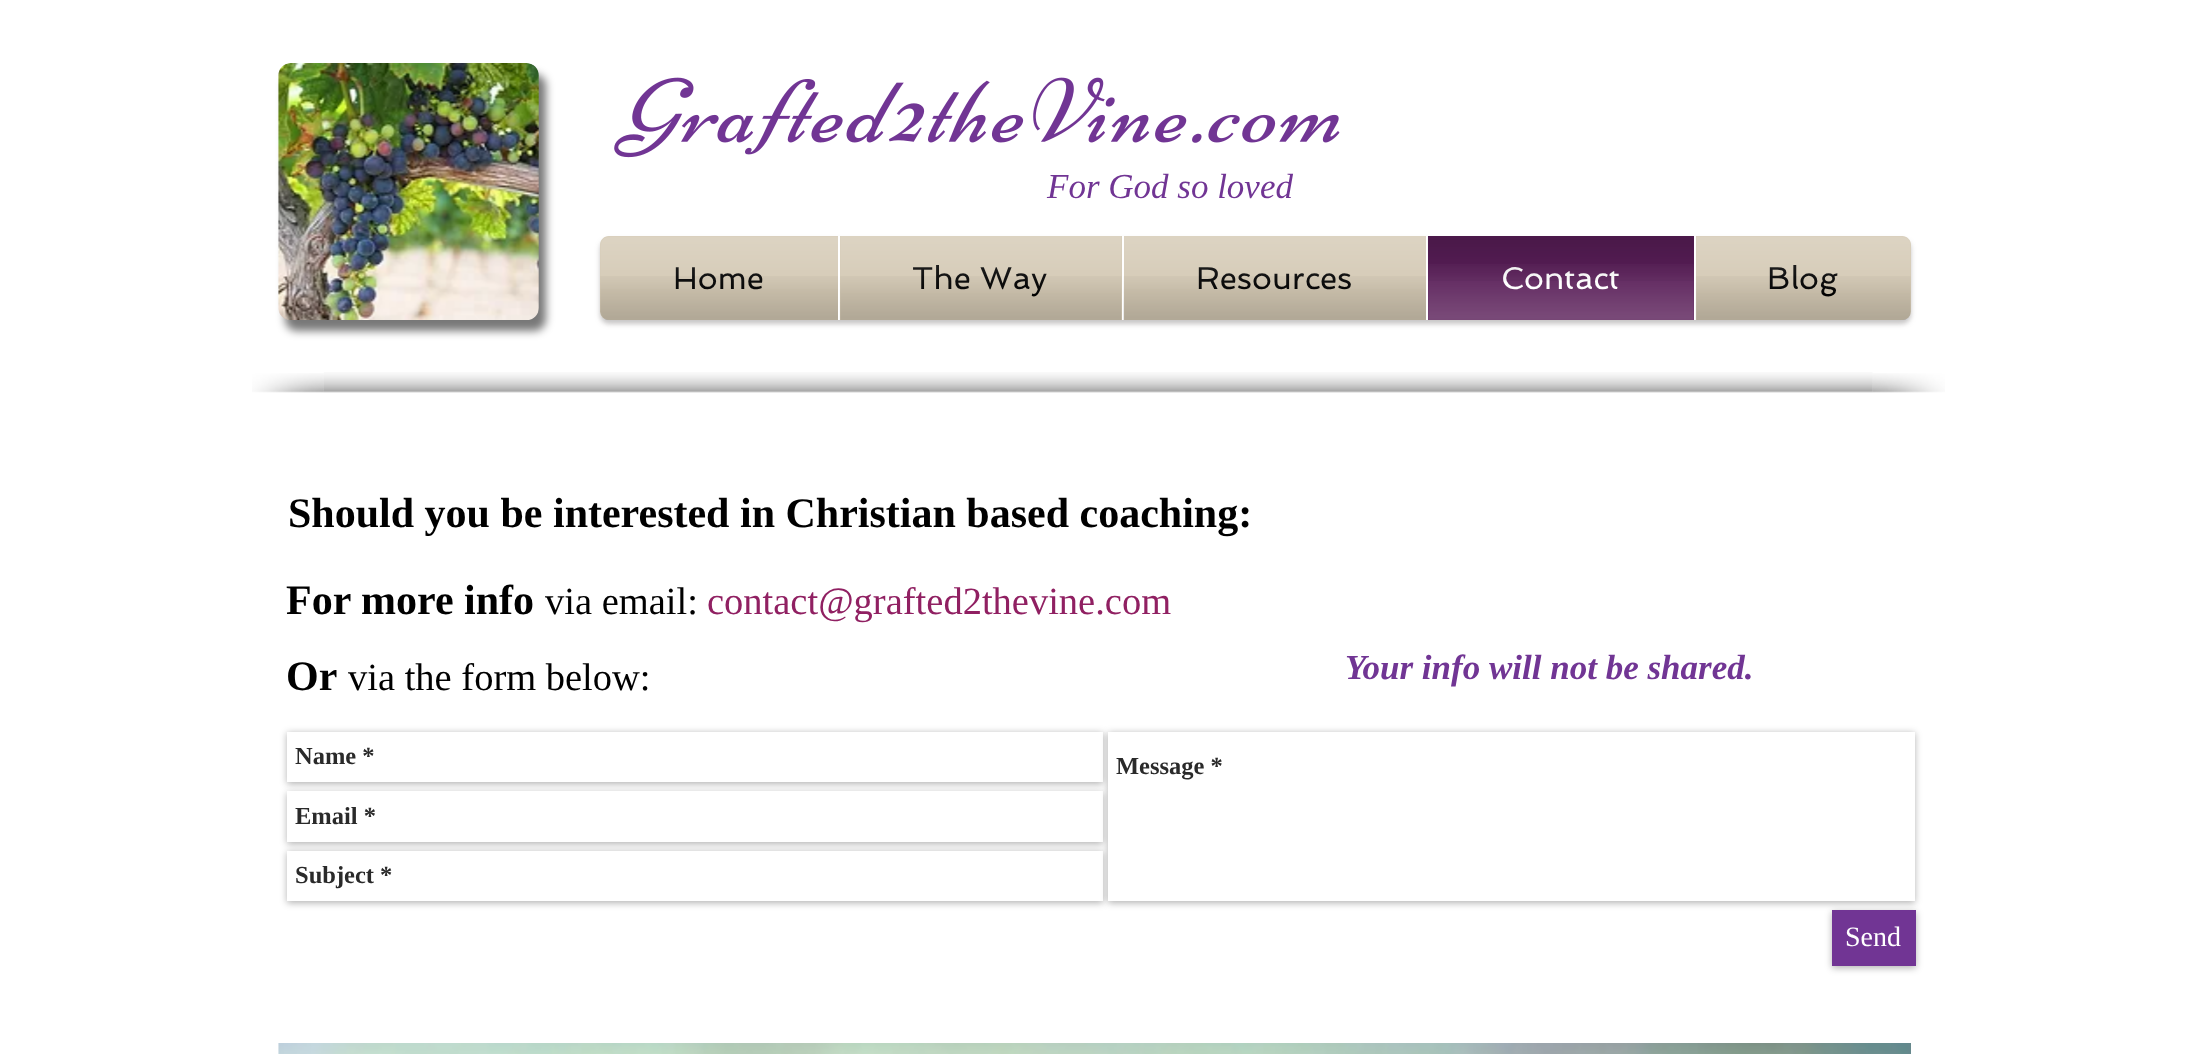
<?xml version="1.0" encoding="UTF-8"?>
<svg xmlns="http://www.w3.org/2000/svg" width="2196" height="1054">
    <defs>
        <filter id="blur1" x="-50%" y="-200%" width="200%" height="500%"><feGaussianBlur stdDeviation="4.5"/></filter>
        <filter id="blur2" x="-50%" y="-200%" width="200%" height="500%"><feGaussianBlur stdDeviation="2.5"/></filter>
        <filter id="blur3" x="-50%" y="-200%" width="200%" height="500%"><feGaussianBlur stdDeviation="3.5"/></filter>
    </defs>
    <rect width="100%" height="100%" fill="#FFFFFF"/>
    <rect x="285" y="74" width="261" height="257" rx="12" fill="#000000" fill-opacity="0.53" filter="url(#blur1)"/>
    <image x="278" y="63" width="261" height="257" href="img_01.png"/>
    <image x="614" y="77" width="726" height="81" href="img_02.png"/>
    <text x="1047" y="198" font-family="Liberation Serif" font-size="35" font-style="italic" fill="#713594">For God so loved</text>
    <rect x="600" y="240" width="1311" height="84" rx="9" fill="#A29E9E" fill-opacity="0.6" filter="url(#blur2)"/>
    <image x="600" y="236" width="1311" height="9" href="img_03.png"/>
    <image x="600" y="311" width="1311" height="9" href="img_04.png"/>
    <path d="M 609 236 H 838 V 320 H 609 C 604 320 600 316 600 311 V 245 C 600 240 604 236 609 236 Z" fill="#D4C9B4"/>
    <text x="673" y="289" font-family="Spinnaker" font-size="31.5" fill="#000000">Home</text>
    <image x="600" y="236" width="238" height="53" href="img_05.png"/>
    <image x="600" y="276" width="238" height="44" href="img_06.png"/>
    <rect x="840" y="236" width="282" height="84" fill="#D4C9B4"/>
    <rect x="838" y="236" width="2" height="84" fill="#FFFFFF"/>
    <text x="912" y="289" font-family="Spinnaker" font-size="31.5" fill="#000000">The Way</text>
    <image x="840" y="236" width="282" height="57" href="img_07.png"/>
    <image x="839" y="276" width="283" height="44" href="img_08.png"/>
    <rect x="1124" y="236" width="302" height="84" fill="#D4C9B4"/>
    <rect x="1122" y="236" width="2" height="84" fill="#FFFFFF"/>
    <text x="1196" y="289" font-family="Spinnaker" font-size="31.5" fill="#000000">Resources</text>
    <image x="1124" y="236" width="302" height="53" href="img_09.png"/>
    <image x="1123" y="276" width="303" height="44" href="img_10.png"/>
    <rect x="1428" y="236" width="266" height="84" fill="#591E58"/>
    <rect x="1426" y="236" width="2" height="84" fill="#FFFFFF"/>
    <text x="1501" y="289" font-family="Spinnaker" font-size="31.5" fill="#FFFFFF">Contact</text>
    <image x="1427" y="236" width="267" height="45" href="img_11.png"/>
    <image x="1428" y="264" width="266" height="56" href="img_12.png"/>
    <path d="M 1694 236 H 1902 C 1907 236 1911 240 1911 245 V 311 C 1911 316 1907 320 1902 320 H 1694 Z" fill="#D4C9B4"/>
    <rect x="1694" y="236" width="2" height="84" fill="#FFFFFF"/>
    <text x="1767" y="289" font-family="Spinnaker" font-size="31.5" fill="#000000">Blog</text>
    <image x="1696" y="236" width="215" height="57" href="img_13.png"/>
    <image x="1695" y="276" width="216" height="44" href="img_14.png"/>
    <image x="323" y="372" width="1550" height="21" href="img_15.png"/>
    <image x="252" y="373" width="72" height="20" href="img_16.png"/>
    <image x="1872" y="373" width="73" height="20" href="img_17.png"/>
    <text x="288" y="527" font-family="Liberation Serif" font-size="42" font-weight="700" fill="#000000">Should you be interested in Christian based coaching:</text>
    <text x="286" y="614" font-family="Liberation Serif" font-size="42" font-weight="700" fill="#000000">For more info</text>
    <text x="545" y="614" font-family="Liberation Serif" font-size="38.5" fill="#000000">via email:</text>
    <text x="707" y="614" font-family="Liberation Serif" font-size="38.5" fill="#902062">contact@grafted2thevine.com</text>
    <text x="286" y="690" font-family="Liberation Serif" font-size="42" font-weight="700" fill="#000000">Or</text>
    <text x="348" y="690" font-family="Liberation Serif" font-size="38.5" fill="#000000">via the form below:</text>
    <text x="1345" y="679" font-family="Liberation Serif" font-size="35" font-weight="700" font-style="italic" fill="#713594">Your info will not be shared.</text>
    <rect x="287" y="733" width="816" height="51" fill="#000000" fill-opacity="0.3" filter="url(#blur3)"/>
    <rect x="287" y="732" width="816" height="50" fill="#FFFFFF"/>
    <text x="295" y="764" font-family="Liberation Serif" font-size="24.5" font-weight="700" fill="#2A2A2A">Name *</text>
    <rect x="287" y="793" width="816" height="51" fill="#000000" fill-opacity="0.3" filter="url(#blur3)"/>
    <rect x="287" y="791" width="816" height="51" fill="#FFFFFF"/>
    <rect x="287" y="852" width="816" height="51" fill="#000000" fill-opacity="0.3" filter="url(#blur3)"/>
    <rect x="287" y="851" width="816" height="50" fill="#FFFFFF"/>
    <rect x="1108" y="733" width="807" height="170" fill="#000000" fill-opacity="0.3" filter="url(#blur3)"/>
    <rect x="1108" y="732" width="807" height="169" fill="#FFFFFF"/>
    <text x="1116" y="774" font-family="Liberation Serif" font-size="24.5" font-weight="700" fill="#2A2A2A">Message *</text>
    <text x="295" y="824" font-family="Liberation Serif" font-size="24.5" font-weight="700" fill="#2A2A2A">Email *</text>
    <text x="295" y="883" font-family="Liberation Serif" font-size="24.5" font-weight="700" fill="#2A2A2A">Subject *</text>
    <rect x="1832" y="912" width="84" height="56" fill="#000000" fill-opacity="0.3" filter="url(#blur3)"/>
    <rect x="1832" y="910" width="84" height="56" fill="#713594"/>
    <text x="1845" y="946" font-family="Liberation Serif" font-size="28" fill="#FFFFFF">Send</text>
    <image x="278" y="1043" width="1633" height="11" href="img_18.png"/>
</svg>
